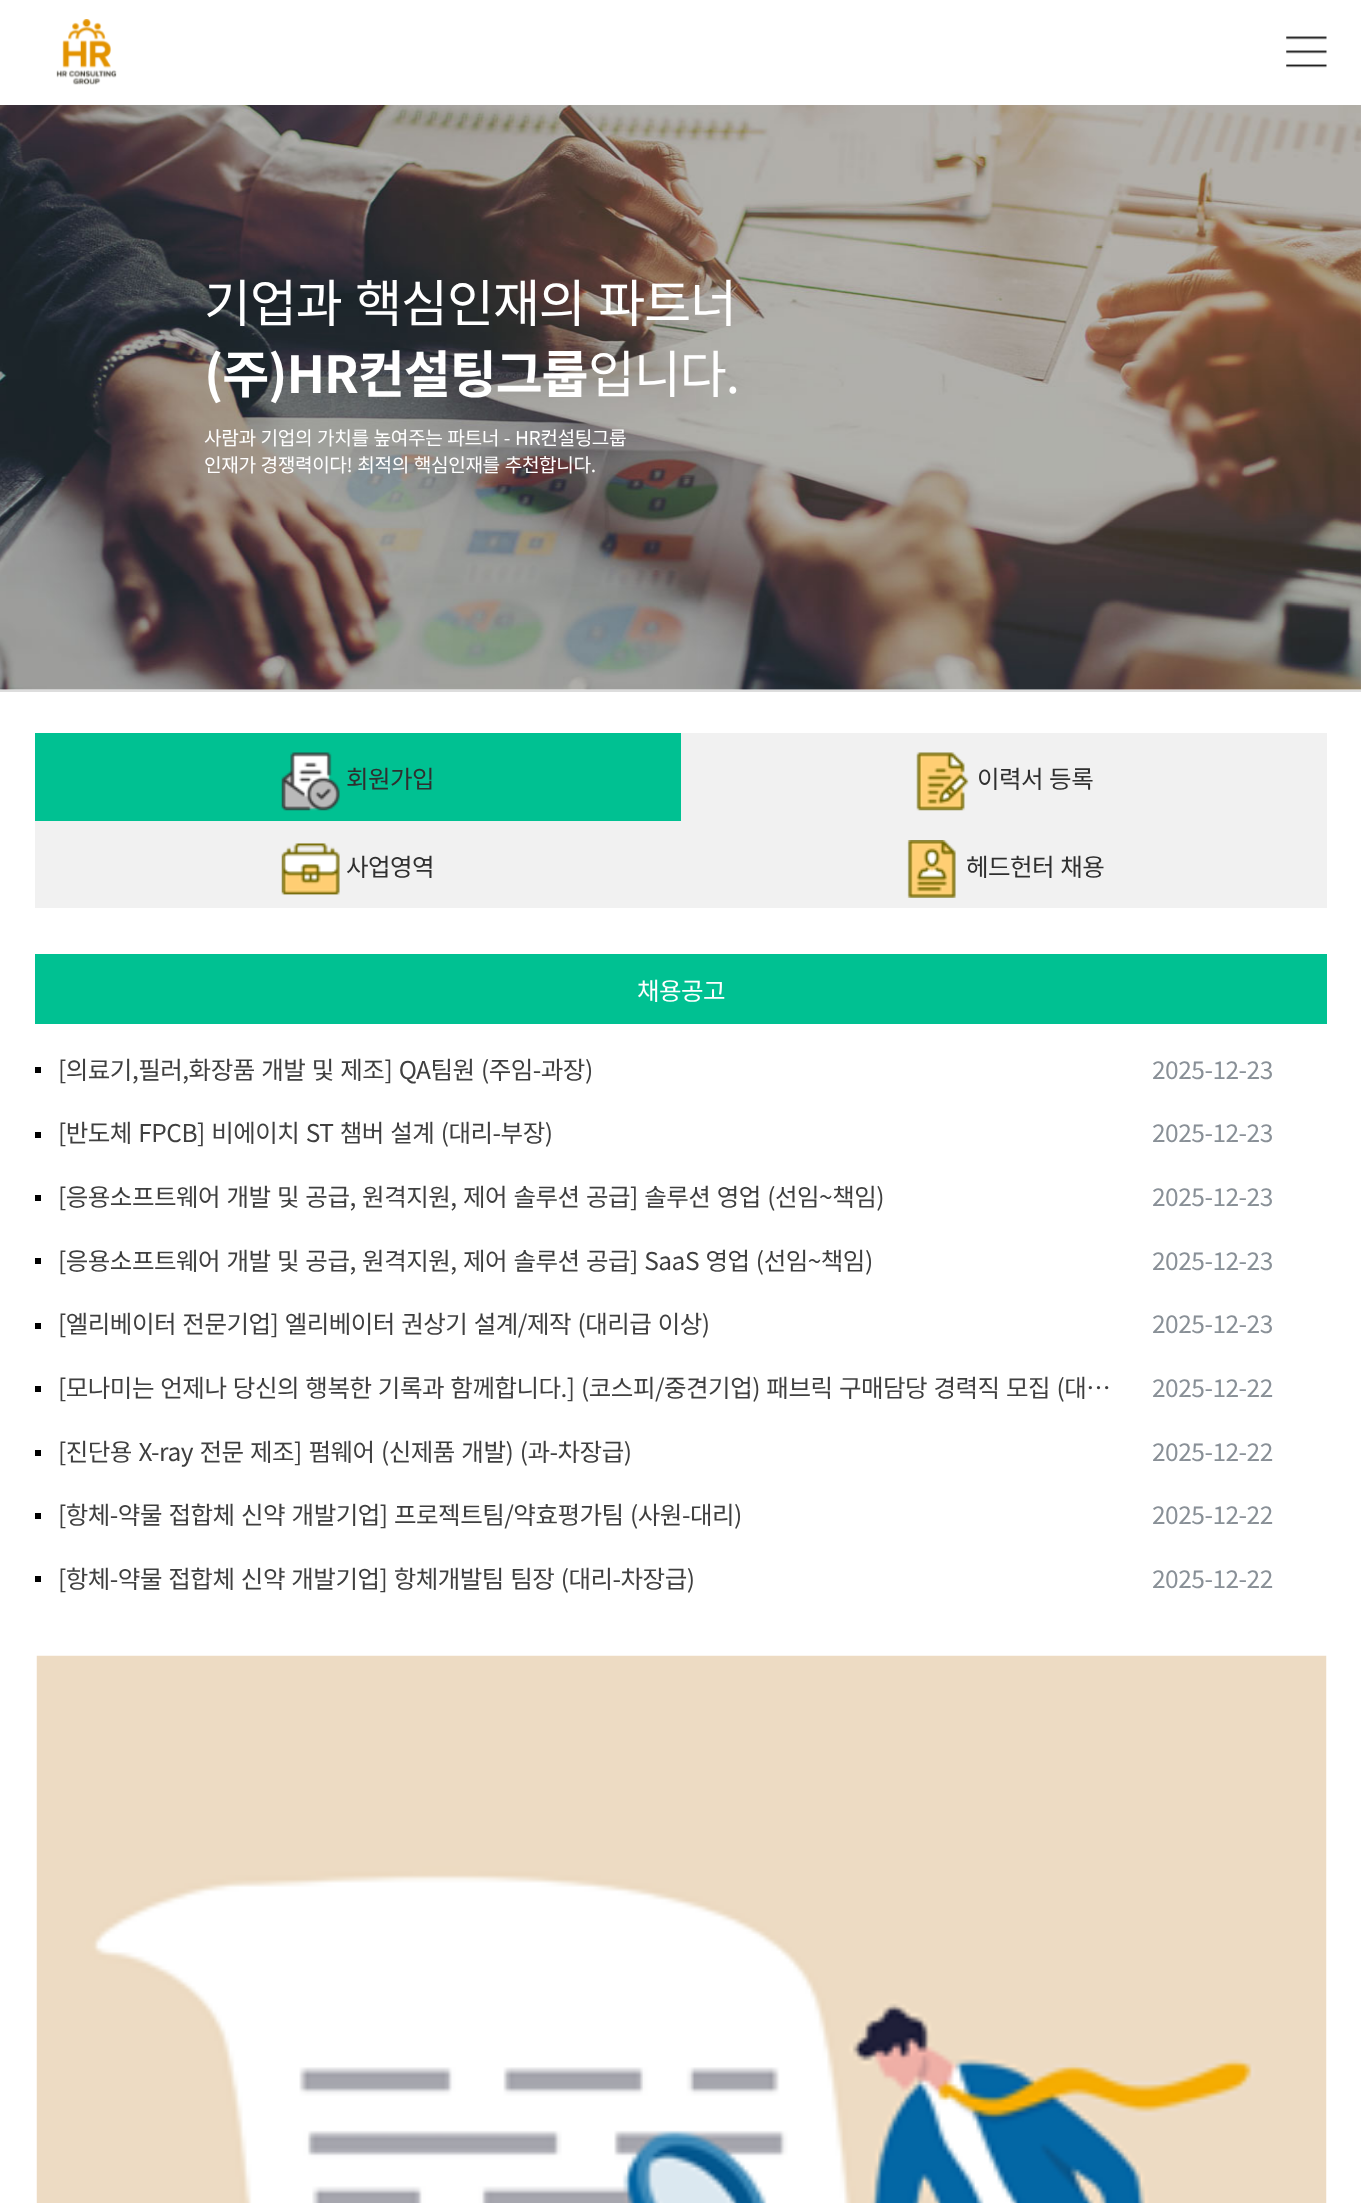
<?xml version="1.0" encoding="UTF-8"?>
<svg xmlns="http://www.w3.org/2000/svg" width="1361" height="2203">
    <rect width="100%" height="100%" fill="#FFFFFF"/>
    <image x="56" y="19" width="61" height="66" href="img_01.png"/>
    <image x="1286" y="36" width="41" height="32" href="img_02.png"/>
    <rect x="0" y="690" width="1361" height="2" fill="#DDDDDD"/>
    <image x="0" y="105" width="1361" height="585" href="img_03.png"/>
    <text x="204" y="322" word-spacing="3" font-family="Noto Sans KR" font-size="51" letter-spacing="-1" fill="#FFFFFF">기업과 핵심인재의 파트너</text>
    <text x="204" y="393" font-family="Noto Sans KR" font-size="51" font-weight="700" letter-spacing="-1" fill="#FFFFFF">(주)HR컨설팅그룹</text>
    <text x="588" y="393" font-family="Noto Sans KR" font-size="51" letter-spacing="-1" fill="#FFFFFF">입니다.</text>
    <text font-family="Noto Sans KR" font-size="19.15" letter-spacing="-0.4" fill="#FFFFFF">
        <tspan x="204" y="445" word-spacing="1">사람과 기업의 가치를 높여주는 파트너 - HR컨설팅그룹</tspan>
        <tspan x="204" y="472" word-spacing="1">인재가 경쟁력이다! 최적의 핵심인재를 추천합니다.</tspan>
    </text>
    <rect x="35" y="733" width="646" height="88" fill="#00C192"/>
    <image x="281" y="752" width="59" height="59" href="img_04.png"/>
    <text x="346" y="788" font-family="Noto Sans KR" font-size="24.5" letter-spacing="-0.5" fill="#2F2F2F">회원가입</text>
    <rect x="681" y="733" width="646" height="88" fill="#F1F1F1"/>
    <image x="916" y="752" width="53" height="59" href="img_05.png"/>
    <text x="977" y="788" word-spacing="1" font-family="Noto Sans KR" font-size="24.5" letter-spacing="-0.5" fill="#2F2F2F">이력서 등록</text>
    <rect x="35" y="821" width="1292" height="87" fill="#F1F1F1"/>
    <image x="281" y="843" width="59" height="52" href="img_06.png"/>
    <text x="346" y="876" font-family="Noto Sans KR" font-size="24.5" letter-spacing="-0.5" fill="#2F2F2F">사업영역</text>
    <image x="907" y="840" width="49" height="58" href="img_07.png"/>
    <text x="966" y="876" word-spacing="1" font-family="Noto Sans KR" font-size="24.5" letter-spacing="-0.5" fill="#2F2F2F">헤드헌터 채용</text>
    <rect x="35" y="954" width="1292" height="70" fill="#00C192"/>
    <text x="637" y="1000" font-family="Noto Sans KR" font-size="24.5" letter-spacing="-0.5" fill="#FFFFFF">채용공고</text>
    <rect x="35" y="1067" width="6" height="6" fill="#000000"/>
    <text x="58" y="1079" word-spacing="1.5" font-family="Noto Sans KR" font-size="24.5" letter-spacing="-0.5" fill="#3F3F3F">[의료기,필러,화장품 개발 및 제조] QA팀원 (주임-과장)</text>
    <text x="1152" y="1079" font-family="Noto Sans KR" font-size="24.5" letter-spacing="-0.5" fill="#899097">2025-12-23</text>
    <rect x="35" y="1132" width="6" height="6" fill="#000000"/>
    <text x="58" y="1142" word-spacing="1.4" font-family="Noto Sans KR" font-size="24.5" letter-spacing="-0.5" fill="#3F3F3F">[반도체 FPCB] 비에이치 ST 챔버 설계 (대리-부장)</text>
    <text x="1152" y="1142" font-family="Noto Sans KR" font-size="24.5" letter-spacing="-0.5" fill="#899097">2025-12-23</text>
    <rect x="35" y="1195" width="6" height="6" fill="#000000"/>
    <text x="58" y="1206" word-spacing="1.4" font-family="Noto Sans KR" font-size="24.5" letter-spacing="-0.5" fill="#3F3F3F">[응용소프트웨어 개발 및 공급, 원격지원, 제어 솔루션 공급] 솔루션 영업 (선임~책임)</text>
    <text x="1152" y="1206" font-family="Noto Sans KR" font-size="24.5" letter-spacing="-0.5" fill="#899097">2025-12-23</text>
    <rect x="35" y="1258" width="6" height="6" fill="#000000"/>
    <text x="58" y="1270" word-spacing="1.4" font-family="Noto Sans KR" font-size="24.5" letter-spacing="-0.5" fill="#3F3F3F">[응용소프트웨어 개발 및 공급, 원격지원, 제어 솔루션 공급] SaaS 영업 (선임~책임)</text>
    <text x="1152" y="1270" font-family="Noto Sans KR" font-size="24.5" letter-spacing="-0.5" fill="#899097">2025-12-23</text>
    <rect x="35" y="1323" width="6" height="6" fill="#000000"/>
    <text x="58" y="1333" word-spacing="1.4" font-family="Noto Sans KR" font-size="24.5" letter-spacing="-0.5" fill="#3F3F3F">[엘리베이터 전문기업] 엘리베이터 권상기 설계/제작 (대리급 이상)</text>
    <text x="1152" y="1333" font-family="Noto Sans KR" font-size="24.5" letter-spacing="-0.5" fill="#899097">2025-12-23</text>
    <rect x="35" y="1386" width="6" height="6" fill="#000000"/>
    <text x="58" y="1397" word-spacing="1.4" font-family="Noto Sans KR" font-size="24.5" letter-spacing="-0.5" fill="#3F3F3F">[모나미는 언제나 당신의 행복한 기록과 함께합니다.] (코스피/중견기업) 패브릭 구매담당 경력직 모집 (대…</text>
    <text x="1152" y="1397" font-family="Noto Sans KR" font-size="24.5" letter-spacing="-0.5" fill="#899097">2025-12-22</text>
    <rect x="35" y="1450" width="6" height="6" fill="#000000"/>
    <text x="58" y="1461" word-spacing="1.5" font-family="Noto Sans KR" font-size="24.5" letter-spacing="-0.5" fill="#3F3F3F">[진단용 X-ray 전문 제조] 펌웨어 (신제품 개발) (과-차장급)</text>
    <text x="1152" y="1461" font-family="Noto Sans KR" font-size="24.5" letter-spacing="-0.5" fill="#899097">2025-12-22</text>
    <rect x="35" y="1513" width="6" height="6" fill="#000000"/>
    <text x="58" y="1524" word-spacing="1.5" font-family="Noto Sans KR" font-size="24.5" letter-spacing="-0.5" fill="#3F3F3F">[항체-약물 접합체 신약 개발기업] 프로젝트팀/약효평가팀 (사원-대리)</text>
    <text x="1152" y="1524" font-family="Noto Sans KR" font-size="24.5" letter-spacing="-0.5" fill="#899097">2025-12-22</text>
    <rect x="35" y="1576" width="6" height="6" fill="#000000"/>
    <text x="58" y="1588" word-spacing="1.4" font-family="Noto Sans KR" font-size="24.5" letter-spacing="-0.5" fill="#3F3F3F">[항체-약물 접합체 신약 개발기업] 항체개발팀 팀장 (대리-차장급)</text>
    <text x="1152" y="1588" font-family="Noto Sans KR" font-size="24.5" letter-spacing="-0.5" fill="#899097">2025-12-22</text>
    <image x="36" y="1655" width="1291" height="548" href="img_08.png"/>
</svg>
